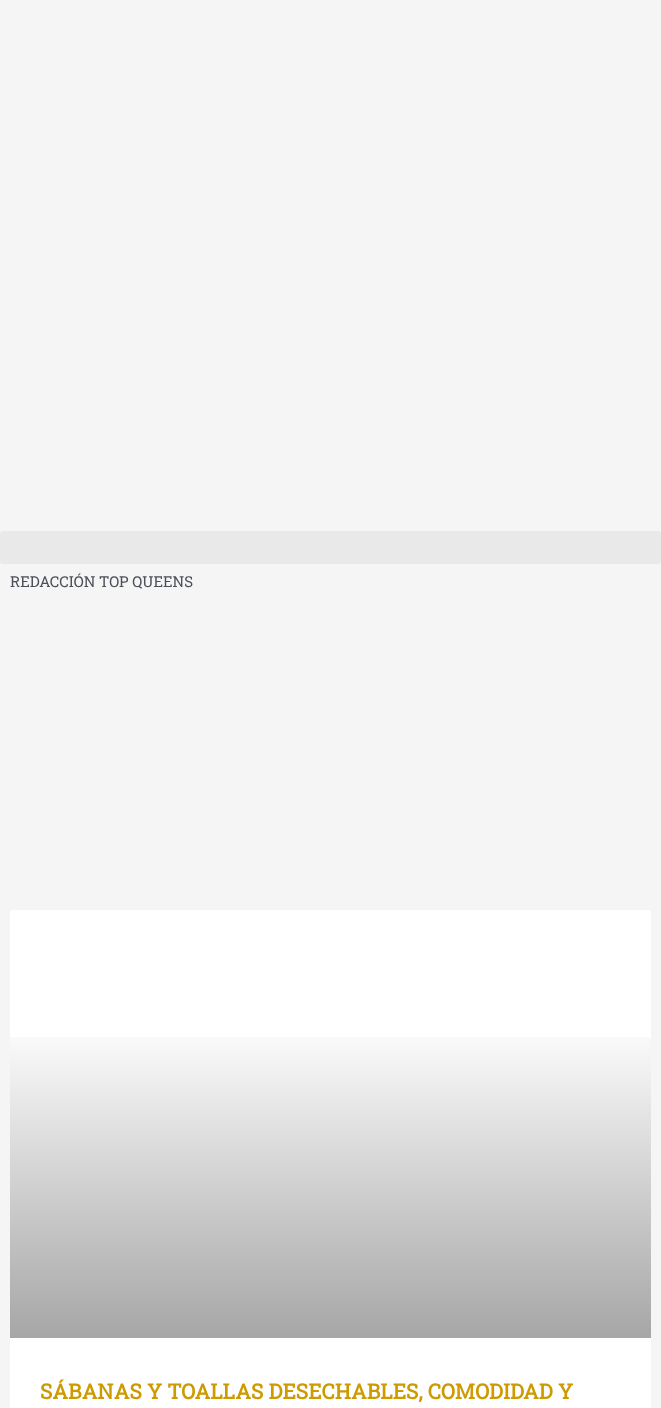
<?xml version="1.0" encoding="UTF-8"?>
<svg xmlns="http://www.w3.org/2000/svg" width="661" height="1408">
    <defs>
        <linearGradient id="g1" gradientUnits="userSpaceOnUse" x1="331" y1="1338" x2="331" y2="910"><stop offset="0" stop-color="#000000" stop-opacity="0.35"/><stop offset="0.75" stop-color="#000000" stop-opacity="0"/></linearGradient>
    </defs>
    <rect width="100%" height="100%" fill="#F5F5F5"/>
    <rect x="0" y="531" width="661" height="33" rx="3" fill="#E9E9E9"/>
    <text x="10" y="587" font-family="Roboto Slab" font-size="15" fill="#4B4F58">REDACCIÓN TOP QUEENS</text>
    <rect x="10" y="910" width="641" height="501" rx="3" fill="#FFFFFF"/>
    <rect x="10" y="1037" width="641" height="301" fill="url(#g1)"/>
    <text x="40" y="1399" font-family="Roboto Slab" font-size="21" font-weight="700" fill="#CD9A00">SÁBANAS Y TOALLAS DESECHABLES, COMODIDAD Y</text>
</svg>
